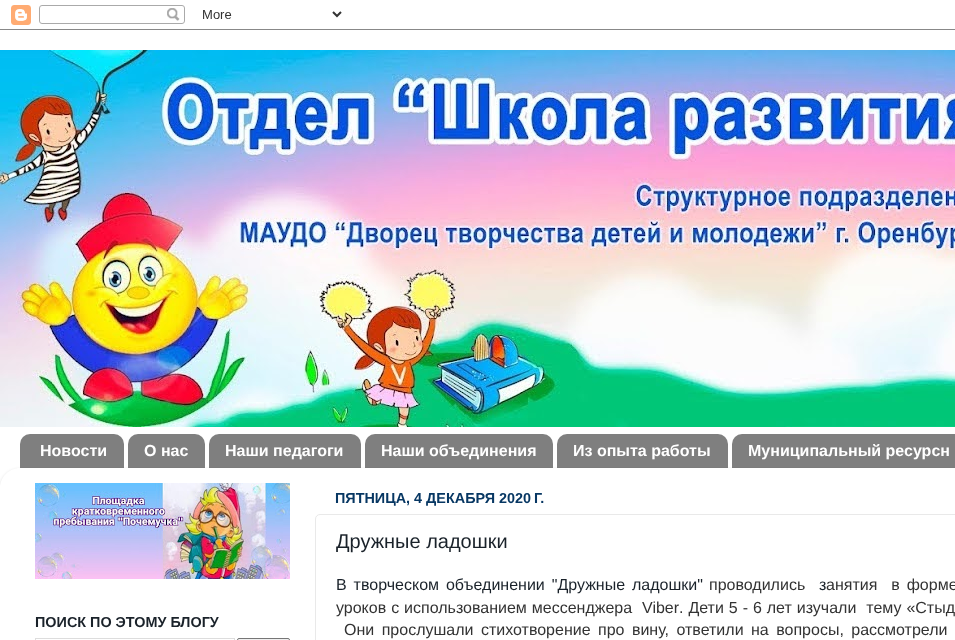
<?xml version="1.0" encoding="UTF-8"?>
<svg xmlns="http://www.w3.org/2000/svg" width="955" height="640">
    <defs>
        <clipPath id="clip1"><path d="M 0 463 H 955 V 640 H 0 Z M 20 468 H 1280 C 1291 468 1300 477 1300 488 V 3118 H 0 V 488 C 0 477 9 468 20 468 Z" clip-rule="evenodd"/></clipPath>
        <filter id="blur1" x="-50%" y="-200%" width="200%" height="500%"><feGaussianBlur stdDeviation="1.5"/></filter>
    </defs>
    <rect width="100%" height="100%" fill="#FFFFFF"/>
    <image x="0" y="5" width="955" height="25" href="img_01.png"/>
    <image x="0" y="50" width="955" height="377" href="img_02.png"/>
    <image x="20" y="434" width="104" height="34" href="img_03.png"/>
    <text x="40" y="456" font-family="Liberation Sans" font-size="16" font-weight="700" fill="#FFFFFF">Новости</text>
    <image x="128" y="434" width="77" height="34" href="img_04.png"/>
    <text x="144" y="456" font-family="Liberation Sans" font-size="16" font-weight="700" fill="#FFFFFF">О нас</text>
    <image x="209" y="434" width="152" height="34" href="img_05.png"/>
    <text x="225" y="456" font-family="Liberation Sans" font-size="16" font-weight="700" fill="#FFFFFF">Наши педагоги</text>
    <image x="365" y="434" width="188" height="34" href="img_06.png"/>
    <text x="381" y="456" font-family="Liberation Sans" font-size="16" font-weight="700" fill="#FFFFFF">Наши объединения</text>
    <image x="557" y="434" width="171" height="34" href="img_07.png"/>
    <text x="573" y="456" font-family="Liberation Sans" font-size="16" font-weight="700" fill="#FFFFFF">Из опыта работы</text>
    <image x="732" y="434" width="223" height="34" href="img_08.png"/>
    <text x="748" y="456" font-family="Liberation Sans" font-size="16" font-weight="700" fill="#FFFFFF">Муниципальный ресурсн</text>
    <g clip-path="url(#clip1)">
        <rect x="0" y="469" width="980" height="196" rx="20" fill="#000000" fill-opacity="0.15" filter="url(#blur1)"/>
    </g>
    <image x="35" y="483" width="255" height="96" href="img_09.png"/>
    <text x="35" y="627" font-family="Liberation Sans" font-size="14.4" font-weight="700" fill="#1A222A">ПОИСК ПО ЭТОМУ БЛОГУ</text>
    <rect x="35.5" y="638.5" width="199" height="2" fill="none" stroke="#DDDDDD"/>
    <rect x="237.5" y="638.5" width="52" height="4" rx="1.5" fill="#EFEFEF" stroke="#767676"/>
    <text x="335" y="503" font-family="Liberation Sans" font-size="14.4" font-weight="700" fill="#073763">ПЯТНИЦА, 4 ДЕКАБРЯ 2020 Г.</text>
    <rect x="315.5" y="514.5" width="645" height="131" rx="4.5" fill="none" stroke="#E9E9E9"/>
    <text x="336" y="548" font-family="Liberation Sans" font-size="20" fill="#1A222A">Дружные ладошки</text>
    <text x="336" y="590" word-spacing="2.5" font-family="Liberation Sans" font-size="16" fill="#1A222A">В творческом объединении "Дружные ладошки"</text>
    <text x="709" y="590" font-family="Liberation Sans" font-size="16" fill="#333333">проводились</text>
    <text x="819" y="590" font-family="Liberation Sans" font-size="16" fill="#1A222A">з</text>
    <text x="826" y="590" word-spacing="2.5" font-family="Liberation Sans" font-size="16" fill="#333333" xml:space="preserve">анятия  в форме</text>
    <text x="336" y="613" word-spacing="0.5" font-family="Liberation Sans" font-size="16" fill="#333333">уроков с использованием мессенджера</text>
    <text x="642" y="613" font-family="Liberation Sans" font-size="16" fill="#333333">Viber</text>
    <rect x="679" y="604" width="1" height="2" fill="#FFFFFF"/>
    <text x="679" y="613" word-spacing="0.5" font-family="Liberation Sans" font-size="16" fill="#333333" xml:space="preserve">. Дети 5 - 6 лет изучали  тему «Стыд</text>
    <text x="344" y="635" word-spacing="3" font-family="Liberation Sans" font-size="16" fill="#333333">Они прослушали стихотворение про вину, ответили на вопросы, рассмотрели</text>
</svg>
